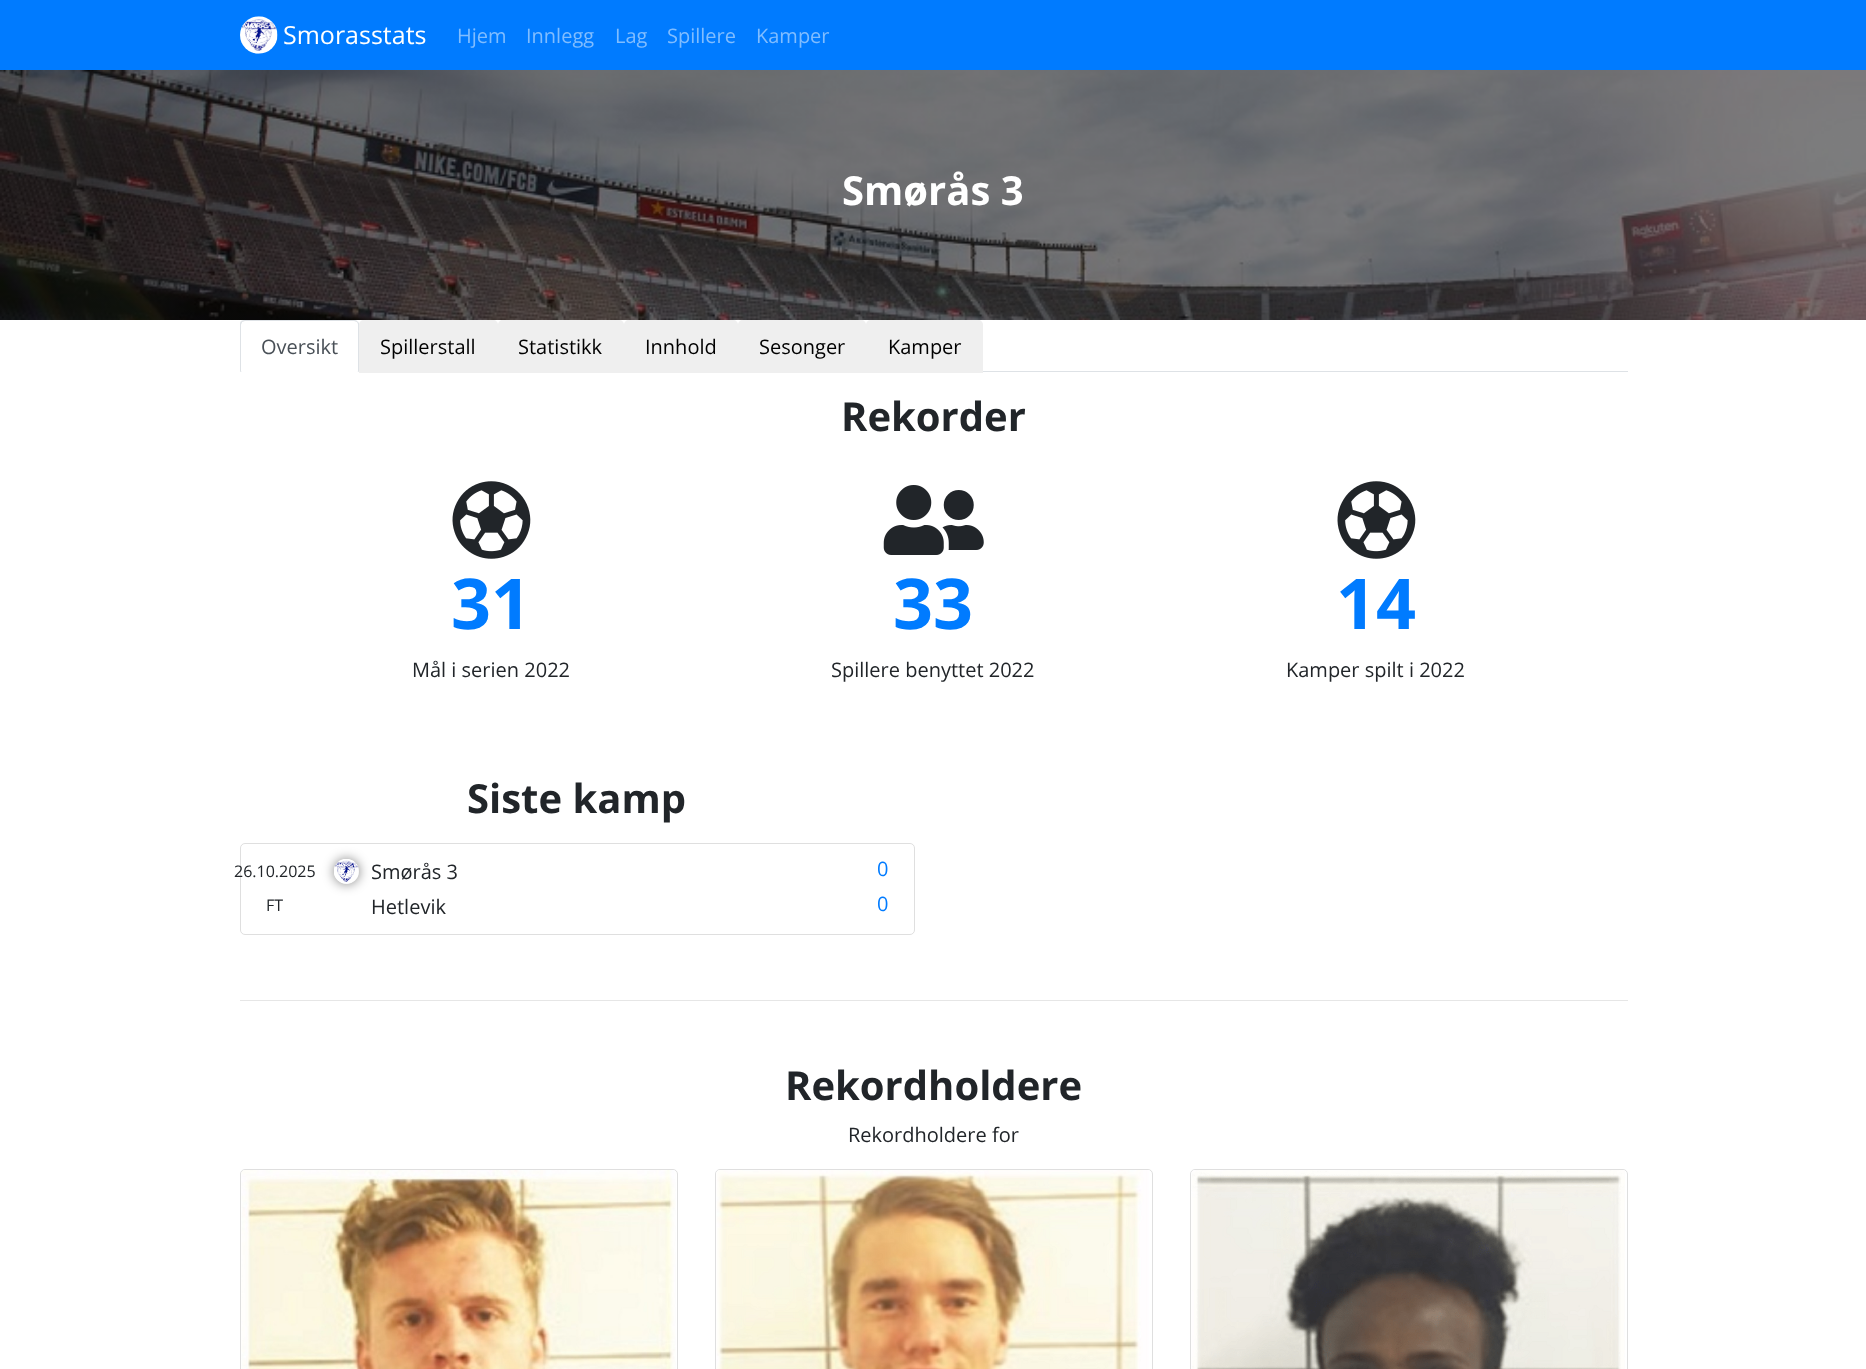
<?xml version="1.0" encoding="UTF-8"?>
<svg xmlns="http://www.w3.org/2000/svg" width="1866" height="1369">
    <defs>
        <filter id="blur1" x="-50%" y="-200%" width="200%" height="500%"><feGaussianBlur stdDeviation="6"/></filter>
    </defs>
    <rect width="100%" height="100%" fill="#FFFFFF"/>
    <rect x="0" y="0" width="1866" height="70" fill="#007BFF"/>
    <image x="240" y="16" width="38" height="38" href="img_01.png"/>
    <text x="283" y="44" font-family="Open Sans" font-size="25" fill="#FFFFFF">Smorasstats</text>
    <text x="457" y="43" font-family="Open Sans" font-size="20" fill="#80BDFF">Hjem</text>
    <text x="526" y="43" font-family="Open Sans" font-size="20" fill="#80BDFF">Innlegg</text>
    <text x="615" y="43" font-family="Open Sans" font-size="20" fill="#80BDFF">Lag</text>
    <text x="667" y="43" font-family="Open Sans" font-size="20" fill="#80BDFF">Spillere</text>
    <text x="756" y="43" font-family="Open Sans" font-size="20" fill="#80BDFF">Kamper</text>
    <image x="0" y="70" width="1866" height="250" href="img_02.png"/>
    <text x="842" y="205" font-family="Open Sans" font-size="40" font-weight="700" fill="#FFFFFF">Smørås 3</text>
    <rect x="983" y="371" width="645" height="1" fill="#DEE2E6"/>
    <path d="M 245 320 C 244 320 242 320 241 321 L 242 322 L 245 321 H 354 L 357 322 V 321 C 357 320 355 320 354 320 Z" fill="#DEE2E6"/>
    <path d="M 359 372 L 357 371 H 358 V 324 L 357 322 V 321 L 359 323 Z" fill="#DEE2E6"/>
    <path d="M 358 372 H 240 L 242 371 H 357 Z" fill="#FFFFFF"/>
    <path d="M 240 325 V 372 L 242 371 H 241 V 325 C 241 324 242 323 242 322 L 241 321 C 240 322 240 324 240 325 Z" fill="#DEE2E6"/>
    <text x="261" y="354" font-family="Open Sans" font-size="20" fill="#495057">Oversikt</text>
    <path d="M 364 320 H 493 C 496 320 498 322 498 325 V 373 H 359 V 325 C 359 322 361 320 364 320 Z" fill="#EFEFEF"/>
    <text x="380" y="354" font-family="Open Sans" font-size="20" fill="#000000">Spillerstall</text>
    <path d="M 503 320 H 619 C 622 320 624 322 624 325 V 373 H 498 V 325 C 498 322 500 320 503 320 Z" fill="#EFEFEF"/>
    <text x="518" y="354" font-family="Open Sans" font-size="20" fill="#000000">Statistikk</text>
    <path d="M 629 320 H 733 C 736 320 738 322 738 325 V 373 H 624 V 325 C 624 322 626 320 629 320 Z" fill="#EFEFEF"/>
    <text x="645" y="354" font-family="Open Sans" font-size="20" fill="#000000">Innhold</text>
    <path d="M 743 320 H 861 C 864 320 866 322 866 325 V 373 H 738 V 325 C 738 322 740 320 743 320 Z" fill="#EFEFEF"/>
    <text x="759" y="354" font-family="Open Sans" font-size="20" fill="#000000">Sesonger</text>
    <path d="M 871 320 H 978 C 981 320 983 322 983 325 V 373 H 866 V 325 C 866 322 868 320 871 320 Z" fill="#EFEFEF"/>
    <text x="888" y="354" font-family="Open Sans" font-size="20" fill="#000000">Kamper</text>
    <text x="841" y="431" font-family="Open Sans" font-size="40" font-weight="700" fill="#212529">Rekorder</text>
    <image x="452" y="481" width="79" height="78" href="img_03.png"/>
    <text x="451" y="629" font-family="Open Sans" font-size="70" font-weight="700" fill="#007BFF">31</text>
    <text x="412" y="677" font-family="Open Sans" font-size="20" fill="#212529">Mål i serien 2022</text>
    <image x="883" y="485" width="101" height="70" href="img_04.png"/>
    <text x="893" y="629" font-family="Open Sans" font-size="70" font-weight="700" fill="#007BFF">33</text>
    <text x="831" y="677" font-family="Open Sans" font-size="20" fill="#212529">Spillere benyttet 2022</text>
    <image x="1337" y="481" width="79" height="78" href="img_03.png"/>
    <text x="1336" y="629" font-family="Open Sans" font-size="70" font-weight="700" fill="#007BFF">14</text>
    <text x="1286" y="677" font-family="Open Sans" font-size="20" fill="#212529">Kamper spilt i 2022</text>
    <text x="467" y="813" font-family="Open Sans" font-size="40" font-weight="700" fill="#212529">Siste kamp</text>
    <rect x="240.5" y="843.5" width="674" height="91" rx="4.5" fill="none" stroke="#DFDFDF"/>
    <text x="234" y="877" font-family="Open Sans" font-size="16" fill="#212529">26.10.2025</text>
    <text x="266" y="911" font-family="Open Sans" font-size="16" fill="#212529">FT</text>
    <rect x="334" y="859" width="25" height="25" rx="12.5" fill="#000000" fill-opacity="0.5" filter="url(#blur1)"/>
    <circle cx="346.5" cy="871.5" r="12.5" fill="#F4F4F4"/>
    <image x="334" y="859" width="25" height="25" href="img_05.png"/>
    <text x="371" y="879" font-family="Open Sans" font-size="20" fill="#212529">Smørås 3</text>
    <text x="877" y="876" font-family="Open Sans" font-size="20" fill="#007BFF">0</text>
    <text x="371" y="914" font-family="Open Sans" font-size="20" fill="#212529">Hetlevik</text>
    <text x="877" y="911" font-family="Open Sans" font-size="20" fill="#007BFF">0</text>
    <rect x="240" y="1000" width="1388" height="1" fill="#E6E6E6"/>
    <text x="785" y="1100" font-family="Open Sans" font-size="40" font-weight="700" fill="#212529">Rekordholdere</text>
    <text x="848" y="1142" font-family="Open Sans" font-size="20" fill="#212529">Rekordholdere for</text>
    <rect x="240.5" y="1169.5" width="437" height="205" rx="4.5" fill="none" stroke="#DFDFDF"/>
    <image x="241" y="1170" width="435" height="199" href="img_06.png"/>
    <rect x="715.5" y="1169.5" width="437" height="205" rx="4.5" fill="none" stroke="#DFDFDF"/>
    <image x="716" y="1170" width="434" height="199" href="img_07.png"/>
    <rect x="1190.5" y="1169.5" width="437" height="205" rx="4.5" fill="none" stroke="#DFDFDF"/>
    <image x="1191" y="1170" width="434" height="199" href="img_08.png"/>
</svg>
